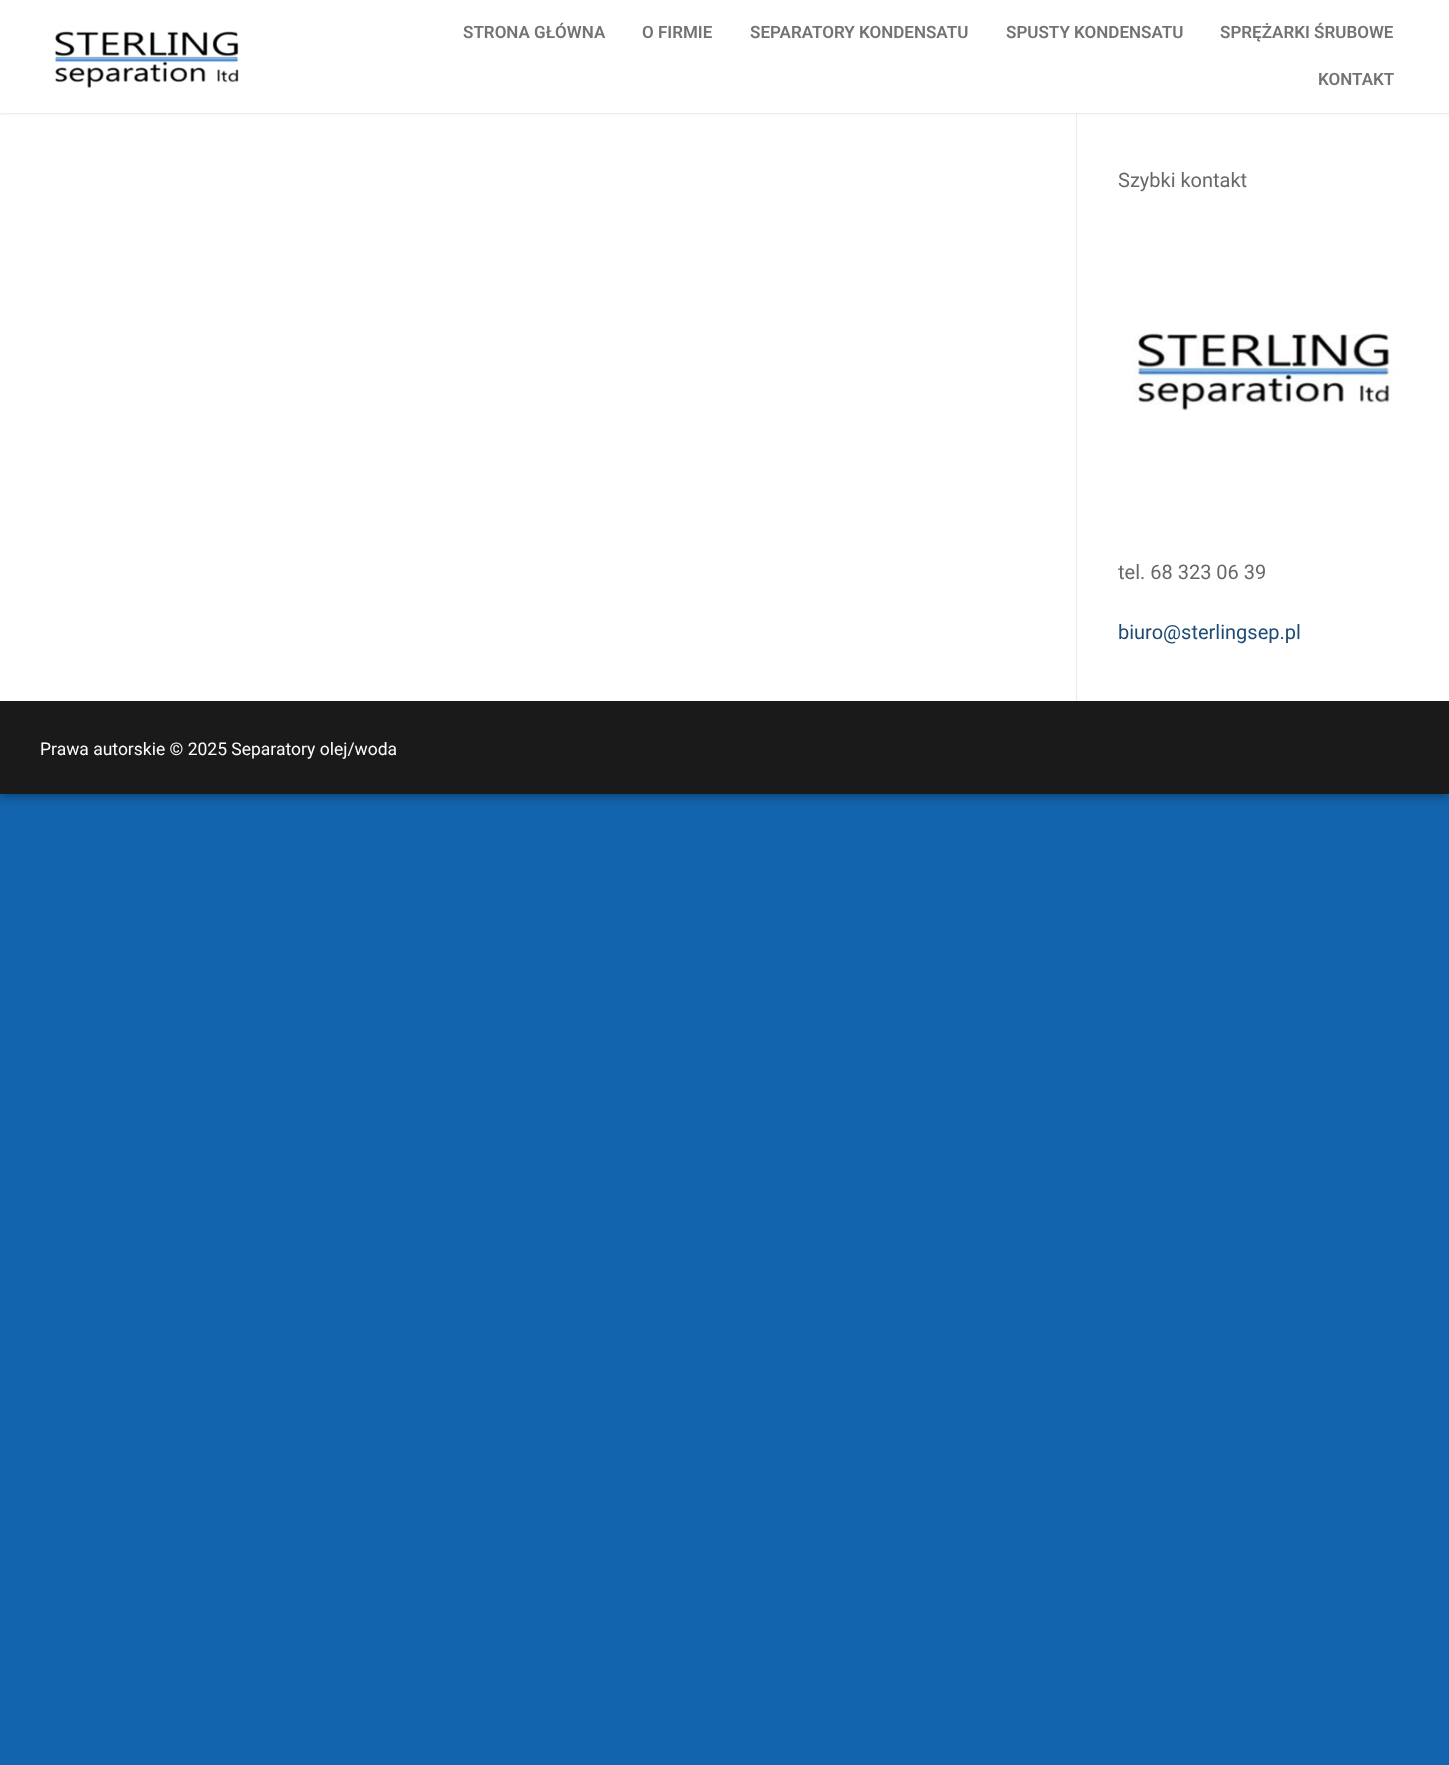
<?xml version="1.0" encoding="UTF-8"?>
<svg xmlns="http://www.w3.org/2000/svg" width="1449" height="1765">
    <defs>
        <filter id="blur1" x="-50%" y="-200%" width="200%" height="500%"><feGaussianBlur stdDeviation="4"/></filter>
        <filter id="blur2" x="-50%" y="-200%" width="200%" height="500%"><feGaussianBlur stdDeviation="1"/></filter>
    </defs>
    <rect width="100%" height="100%" fill="#1164AD"/>
    <rect x="0" y="4" width="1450" height="794" fill="#000000" fill-opacity="0.23" filter="url(#blur1)"/>
    <rect x="5" y="9" width="1440" height="784" fill="#000000" fill-opacity="0.16" filter="url(#blur1)"/>
    <rect x="0" y="113" width="1449" height="588" fill="#FFFFFF"/>
    <rect x="1076" y="113" width="1" height="588" fill="#EAECEE"/>
    <rect x="0" y="1" width="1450" height="113" fill="#E1E5EA" filter="url(#blur2)"/>
    <rect x="0" y="0" width="1449" height="113" fill="#FFFFFF"/>
    <image x="53" y="31" width="187" height="57" href="img_01.png"/>
    <text x="463" y="38" font-family="Roboto" font-size="17" font-weight="600" fill="#737373">STRONA GŁÓWNA</text>
    <text x="642" y="38" font-family="Roboto" font-size="17" font-weight="600" fill="#737373">O FIRMIE</text>
    <text x="750" y="38" font-family="Roboto" font-size="17" font-weight="600" fill="#737373">SEPARATORY KONDENSATU</text>
    <text x="1006" y="38" font-family="Roboto" font-size="17" font-weight="600" fill="#737373">SPUSTY KONDENSATU</text>
    <text x="1220" y="38" font-family="Roboto" font-size="17" font-weight="600" fill="#737373">SPRĘŻARKI ŚRUBOWE</text>
    <text x="1318" y="85" font-family="Roboto" font-size="17" font-weight="600" fill="#737373">KONTAKT</text>
    <text x="1118" y="187" font-family="Roboto" font-size="20" fill="#686868">Szybki kontakt</text>
    <image x="1133" y="332" width="265" height="79" href="img_02.png"/>
    <text x="1118" y="579" font-family="Roboto" font-size="20" fill="#686868">tel. 68 323 06 39</text>
    <text x="1118" y="639" font-family="Roboto" font-size="20" fill="#1E4B75">biuro@sterlingsep.pl</text>
    <rect x="0" y="701" width="1449" height="93" fill="#1A1A1A"/>
    <text x="40" y="755" font-family="Roboto" font-size="17.5" fill="#FDFDFD">Prawa autorskie © 2025 Separatory olej/woda</text>
</svg>
